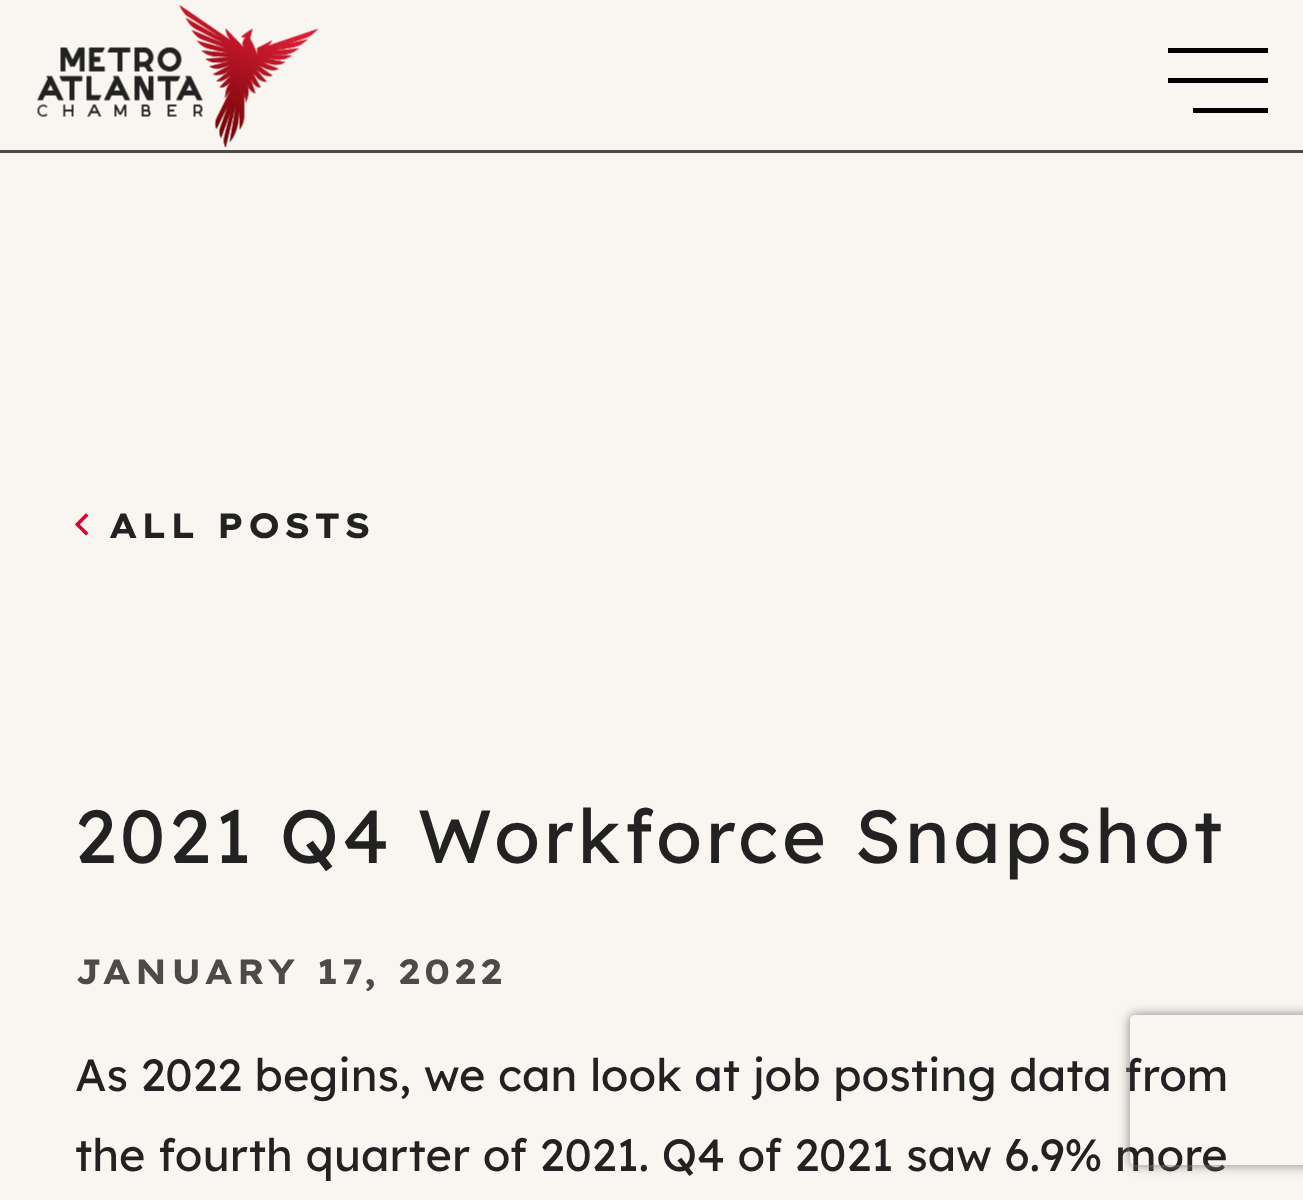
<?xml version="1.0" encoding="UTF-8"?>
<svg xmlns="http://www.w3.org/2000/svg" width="1303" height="1200">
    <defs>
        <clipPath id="clip1"><path d="M 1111 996 H 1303 V 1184 H 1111 Z M 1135 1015 H 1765 C 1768 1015 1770 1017 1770 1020 V 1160 C 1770 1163 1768 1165 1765 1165 H 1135 C 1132 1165 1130 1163 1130 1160 V 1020 C 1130 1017 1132 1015 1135 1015 Z" clip-rule="evenodd"/></clipPath>
        <filter id="blur1" x="-50%" y="-200%" width="200%" height="500%"><feGaussianBlur stdDeviation="6"/></filter>
    </defs>
    <rect width="100%" height="100%" fill="#F9F6F1"/>
    <rect x="0" y="150" width="1303" height="3" fill="#4D4A4A"/>
    <image x="37" y="5" width="281" height="143" href="img_01.png"/>
    <rect x="1168" y="48" width="100" height="5" fill="#000000"/>
    <rect x="1168" y="78" width="100" height="5" fill="#000000"/>
    <rect x="1193" y="108" width="75" height="5" fill="#000000"/>
    <image x="75" y="513" width="14" height="23" href="img_02.png"/>
    <text x="109" y="538" font-family="Lexend Exa" font-size="35" font-weight="700" letter-spacing="3.5" fill="#232222">ALL POSTS</text>
    <text x="75" y="863" font-family="Lexend Deca" font-size="75" letter-spacing="3.75" fill="#232222">2021 Q4 Workforce Snapshot</text>
    <text x="75" y="984" font-family="Lexend Exa" font-size="35" font-weight="700" letter-spacing="3.5" fill="#4D4A4A">JANUARY 17, 2022</text>
    <text font-family="Lexend Deca" font-size="45" fill="#232222">
        <tspan x="75" y="1091">As 2022 begins, we can look at job posting data from</tspan>
        <tspan x="75" y="1171">the fourth quarter of 2021. Q4 of 2021 saw 6.9% more</tspan>
    </text>
    <g clip-path="url(#clip1)">
        <rect x="1130" y="1015" width="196" height="150" rx="5" fill="#808080" filter="url(#blur1)"/>
    </g>
</svg>
